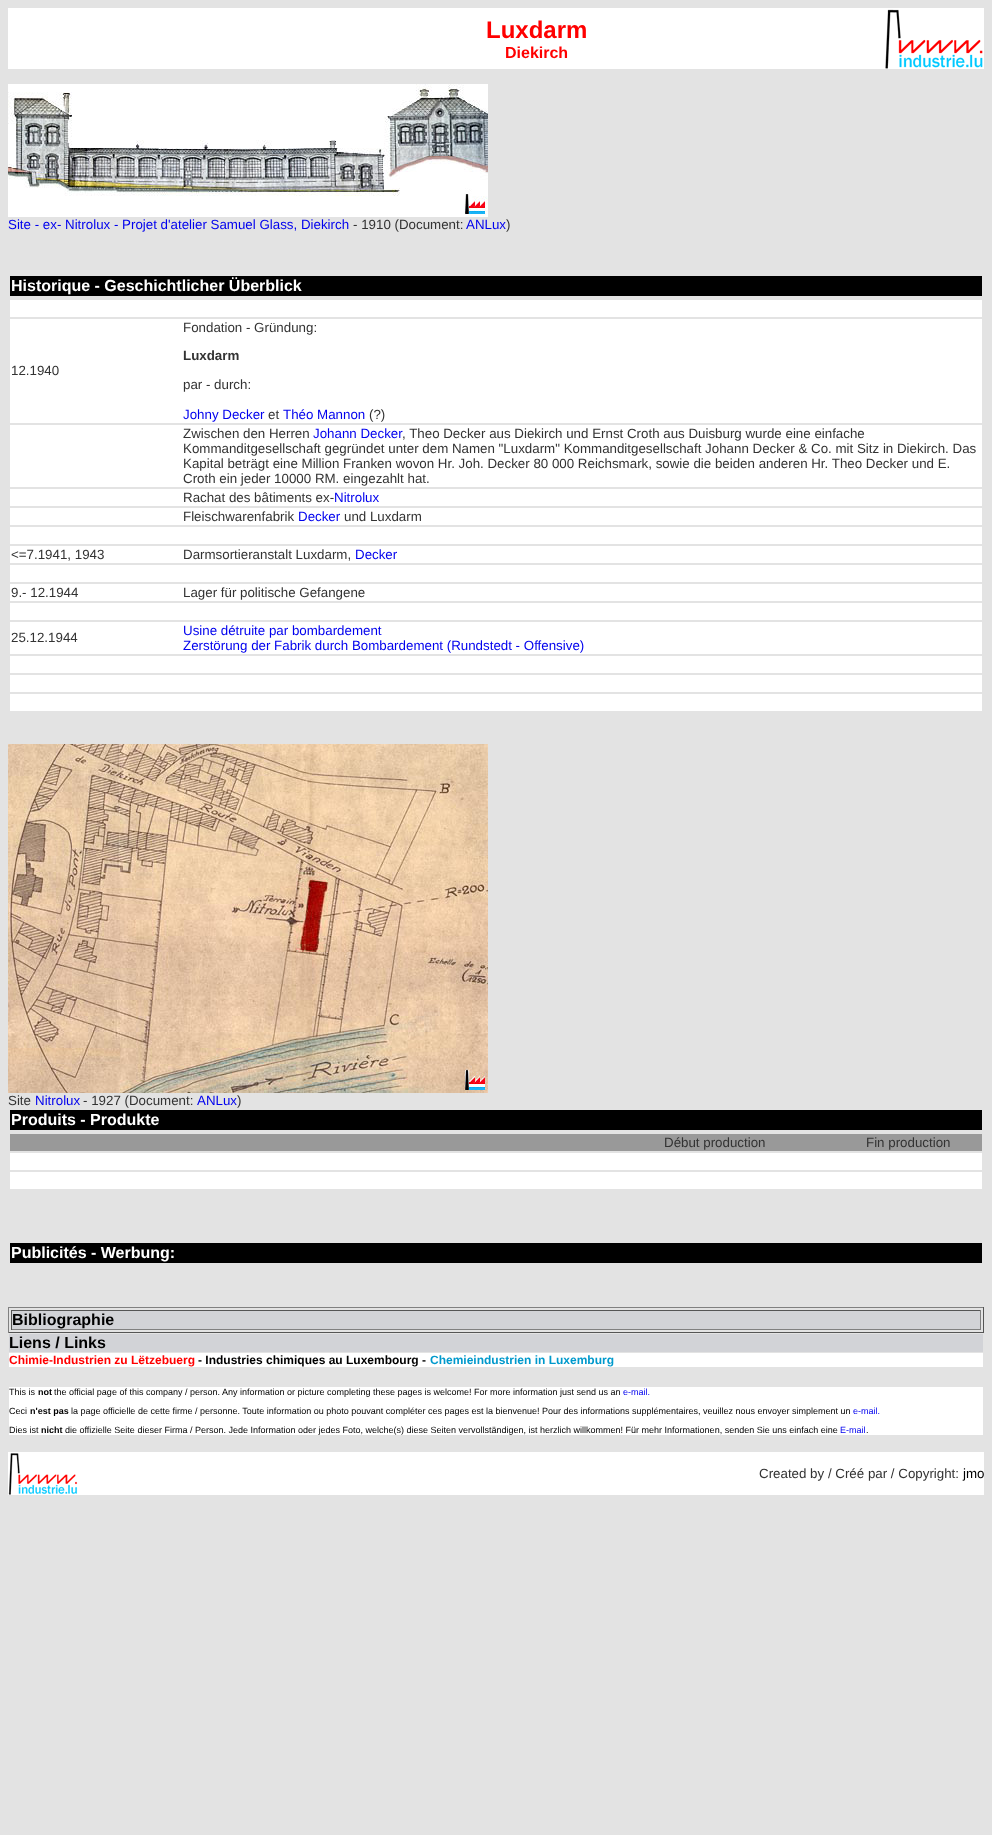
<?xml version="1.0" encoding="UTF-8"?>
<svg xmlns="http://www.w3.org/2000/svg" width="992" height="1835">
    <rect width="100%" height="100%" fill="#E3E3E3"/>
    <rect x="8" y="8" width="976" height="61" fill="#FFFFFF"/>
    <text x="486" y="38" font-family="Liberation Sans" font-size="24" font-weight="700" fill="#FF0000">Luxdarm</text>
    <text x="505" y="58" font-family="Liberation Sans" font-size="16" font-weight="700" fill="#FF0000">Diekirch</text>
    <image x="885" y="9" width="98" height="60" href="img_01.png"/>
    <image x="8" y="84" width="480" height="133" href="img_02.png"/>
    <text x="8" y="229" font-family="Liberation Sans" font-size="13.33" fill="#0000EE">Site - ex- Nitrolux - Projet d'atelier Samuel Glass, Diekirch</text>
    <text x="353" y="229" font-family="Liberation Sans" font-size="13.33" fill="#333333">- 1910 (Document:</text>
    <text x="466" y="229" font-family="Liberation Sans" font-size="13.33" fill="#0000EE">ANLux</text>
    <text x="506" y="229" font-family="Liberation Sans" font-size="13.33" fill="#333333">)</text>
    <rect x="10" y="276" width="972" height="20" fill="#000000"/>
    <text x="11" y="291" font-family="Liberation Sans" font-size="16" font-weight="700" fill="#FFFFFF">Historique - Geschichtlicher Überblick</text>
    <rect x="10" y="300" width="972" height="17" fill="#FFFFFF"/>
    <rect x="10" y="319" width="972" height="104" fill="#FFFFFF"/>
    <text x="11" y="375" font-family="Liberation Sans" font-size="13.33" fill="#333333">12.1940</text>
    <text x="183" y="332" font-family="Liberation Sans" font-size="13.33" fill="#333333">Fondation - Gründung:</text>
    <text x="183" y="360" font-family="Liberation Sans" font-size="13.33" font-weight="700" fill="#333333">Luxdarm</text>
    <text x="183" y="389" font-family="Liberation Sans" font-size="13.33" fill="#333333">par - durch:</text>
    <text x="183" y="419" font-family="Liberation Sans" font-size="13.33" fill="#0000EE">Johny Decker</text>
    <text x="268" y="419" font-family="Liberation Sans" font-size="13.33" fill="#333333">et</text>
    <text x="283" y="419" font-family="Liberation Sans" font-size="13.33" fill="#0000EE">Théo Mannon</text>
    <text x="369" y="419" font-family="Liberation Sans" font-size="13.33" fill="#333333">(?)</text>
    <rect x="10" y="425" width="972" height="62" fill="#FFFFFF"/>
    <text x="183" y="438" font-family="Liberation Sans" font-size="13.33" fill="#333333">Zwischen den Herren</text>
    <text x="313" y="438" font-family="Liberation Sans" font-size="13.33" fill="#0000EE">Johann Decker</text>
    <text x="402" y="438" font-family="Liberation Sans" font-size="13.33" fill="#333333">, Theo Decker aus Diekirch und Ernst Croth aus Duisburg wurde eine einfache</text>
    <text font-family="Liberation Sans" font-size="13.33" fill="#333333">
        <tspan x="183" y="453">Kommanditgesellschaft gegründet unter dem Namen "Luxdarm" Kommanditgesellschaft Johann Decker &amp; Co. mit Sitz in Diekirch. Das</tspan>
        <tspan x="183" y="468">Kapital beträgt eine Million Franken wovon Hr. Joh. Decker 80 000 Reichsmark, sowie die beiden anderen Hr. Theo Decker und E.</tspan>
        <tspan x="183" y="483">Croth ein jeder 10000 RM. eingezahlt hat.</tspan>
    </text>
    <rect x="10" y="489" width="972" height="17" fill="#FFFFFF"/>
    <text x="183" y="502" font-family="Liberation Sans" font-size="13.33" fill="#333333">Rachat des bâtiments ex-</text>
    <text x="334" y="502" font-family="Liberation Sans" font-size="13.33" fill="#0000EE">Nitrolux</text>
    <rect x="10" y="508" width="972" height="17" fill="#FFFFFF"/>
    <text x="183" y="521" font-family="Liberation Sans" font-size="13.33" fill="#333333">Fleischwarenfabrik</text>
    <text x="298" y="521" font-family="Liberation Sans" font-size="13.33" fill="#0000EE">Decker</text>
    <text x="344" y="521" font-family="Liberation Sans" font-size="13.33" fill="#333333">und Luxdarm</text>
    <rect x="10" y="527" width="972" height="17" fill="#FFFFFF"/>
    <rect x="10" y="546" width="972" height="17" fill="#FFFFFF"/>
    <text x="11" y="559" font-family="Liberation Sans" font-size="13.33" fill="#333333">&lt;=7.1941, 1943</text>
    <text x="183" y="559" font-family="Liberation Sans" font-size="13.33" fill="#333333">Darmsortieranstalt Luxdarm,</text>
    <text x="355" y="559" font-family="Liberation Sans" font-size="13.33" fill="#0000EE">Decker</text>
    <rect x="10" y="565" width="972" height="17" fill="#FFFFFF"/>
    <rect x="10" y="584" width="972" height="17" fill="#FFFFFF"/>
    <text x="11" y="597" font-family="Liberation Sans" font-size="13.33" fill="#333333">9.- 12.1944</text>
    <text x="183" y="597" font-family="Liberation Sans" font-size="13.33" fill="#333333">Lager für politische Gefangene</text>
    <rect x="10" y="603" width="972" height="17" fill="#FFFFFF"/>
    <rect x="10" y="622" width="972" height="32" fill="#FFFFFF"/>
    <text x="11" y="642" font-family="Liberation Sans" font-size="13.33" fill="#333333">25.12.1944</text>
    <text font-family="Liberation Sans" font-size="13.33" fill="#0000EE">
        <tspan x="183" y="635">Usine détruite par bombardement</tspan>
        <tspan x="183" y="650">Zerstörung der Fabrik durch Bombardement (Rundstedt - Offensive)</tspan>
    </text>
    <rect x="10" y="656" width="972" height="17" fill="#FFFFFF"/>
    <rect x="10" y="675" width="972" height="17" fill="#FFFFFF"/>
    <rect x="10" y="694" width="972" height="17" fill="#FFFFFF"/>
    <image x="8" y="744" width="480" height="349" href="img_03.png"/>
    <text x="8" y="1105" font-family="Liberation Sans" font-size="13.33" fill="#333333">Site</text>
    <text x="35" y="1105" font-family="Liberation Sans" font-size="13.33" fill="#0000EE">Nitrolux</text>
    <text x="83" y="1105" font-family="Liberation Sans" font-size="13.33" fill="#333333">- 1927 (Document:</text>
    <text x="197" y="1105" font-family="Liberation Sans" font-size="13.33" fill="#0000EE">ANLux</text>
    <text x="237" y="1105" font-family="Liberation Sans" font-size="13.33" fill="#333333">)</text>
    <rect x="10" y="1110" width="972" height="20" fill="#000000"/>
    <text x="11" y="1125" font-family="Liberation Sans" font-size="16" font-weight="700" fill="#FFFFFF">Produits - Produkte</text>
    <rect x="10" y="1134" width="972" height="17" fill="#999999"/>
    <text x="664" y="1147" font-family="Liberation Sans" font-size="13.33" fill="#333333">Début production</text>
    <text x="866" y="1147" font-family="Liberation Sans" font-size="13.33" fill="#333333">Fin production</text>
    <rect x="10" y="1153" width="972" height="17" fill="#FFFFFF"/>
    <rect x="10" y="1172" width="972" height="17" fill="#FFFFFF"/>
    <rect x="10" y="1243" width="972" height="20" fill="#000000"/>
    <text x="11" y="1258" font-family="Liberation Sans" font-size="16" font-weight="700" fill="#FFFFFF">Publicités - Werbung:</text>
    <rect x="8" y="1307" width="976" height="1" fill="#808080"/>
    <rect x="983" y="1307" width="1" height="26" fill="#555555"/>
    <rect x="8" y="1332" width="976" height="1" fill="#555555"/>
    <rect x="8" y="1307" width="1" height="26" fill="#808080"/>
    <rect x="12" y="1311" width="968" height="18" fill="#D2D3D7"/>
    <rect x="11" y="1310" width="970" height="1" fill="#555555"/>
    <rect x="980" y="1310" width="1" height="20" fill="#808080"/>
    <rect x="11" y="1329" width="970" height="1" fill="#808080"/>
    <rect x="11" y="1310" width="1" height="20" fill="#555555"/>
    <text x="12" y="1325" font-family="Liberation Sans" font-size="16" font-weight="700" fill="#000000">Bibliographie</text>
    <rect x="9" y="1334" width="974" height="18" fill="#D2D3D7"/>
    <text x="9" y="1348" font-family="Liberation Sans" font-size="16" font-weight="700" fill="#000000">Liens / Links</text>
    <rect x="9" y="1353" width="974" height="14" fill="#FFFFFF"/>
    <text x="9" y="1364" font-family="Liberation Sans" font-size="12" font-weight="700" fill="#FF0000">Chimie-Industrien zu Lëtzebuerg</text>
    <text x="198" y="1364" font-family="Liberation Sans" font-size="12" font-weight="700" fill="#000000">- Industries chimiques au Luxembourg -</text>
    <text x="430" y="1364" font-family="Liberation Sans" font-size="12" font-weight="700" fill="#0099CC">Chemieindustrien in Luxemburg</text>
    <rect x="9" y="1387" width="974" height="48" fill="#FFFFFF"/>
    <text x="9" y="1395" font-family="Liberation Sans" font-size="9" fill="#000000">This is</text>
    <text x="38" y="1395" font-family="Liberation Sans" font-size="9" font-weight="700" fill="#000000">not</text>
    <text x="54" y="1395" font-family="Liberation Sans" font-size="9" fill="#000000">the official page of this company / person. Any information or picture completing these pages is welcome! For more information just send us an</text>
    <text x="623" y="1395" font-family="Liberation Sans" font-size="9" fill="#0000EE">e-mail.</text>
    <text x="9" y="1414" font-family="Liberation Sans" font-size="9" fill="#000000">Ceci</text>
    <text x="30" y="1414" font-family="Liberation Sans" font-size="9" font-weight="700" fill="#000000">n'est pas</text>
    <text x="71" y="1414" font-family="Liberation Sans" font-size="9" fill="#000000">la page officielle de cette firme / personne. Toute information ou photo pouvant compléter ces pages est la bienvenue! Pour des informations supplémentaires, veuillez nous envoyer simplement un</text>
    <text x="853" y="1414" font-family="Liberation Sans" font-size="9" fill="#0000EE">e-mail.</text>
    <text x="9" y="1433" font-family="Liberation Sans" font-size="9" fill="#000000">Dies ist</text>
    <text x="41" y="1433" font-family="Liberation Sans" font-size="9" font-weight="700" fill="#000000">nicht</text>
    <text x="65" y="1433" font-family="Liberation Sans" font-size="9" fill="#000000">die offizielle Seite dieser Firma / Person. Jede Information oder jedes Foto, welche(s) diese Seiten vervollständigen, ist herzlich willkommen! Für mehr Informationen, senden Sie uns einfach eine</text>
    <text x="840" y="1433" font-family="Liberation Sans" font-size="9" fill="#0000EE">E-mail</text>
    <text x="866" y="1433" font-family="Liberation Sans" font-size="9" fill="#000000">.</text>
    <rect x="8" y="1452" width="976" height="43" fill="#FFFFFF"/>
    <image x="8" y="1453" width="70" height="42" href="img_04.png"/>
    <text x="759" y="1478" font-family="Liberation Sans" font-size="13.33" fill="#333333">Created by / Créé par / Copyright:</text>
    <text x="963" y="1478" font-family="Liberation Sans" font-size="13.33" fill="#000000">jmo</text>
</svg>
